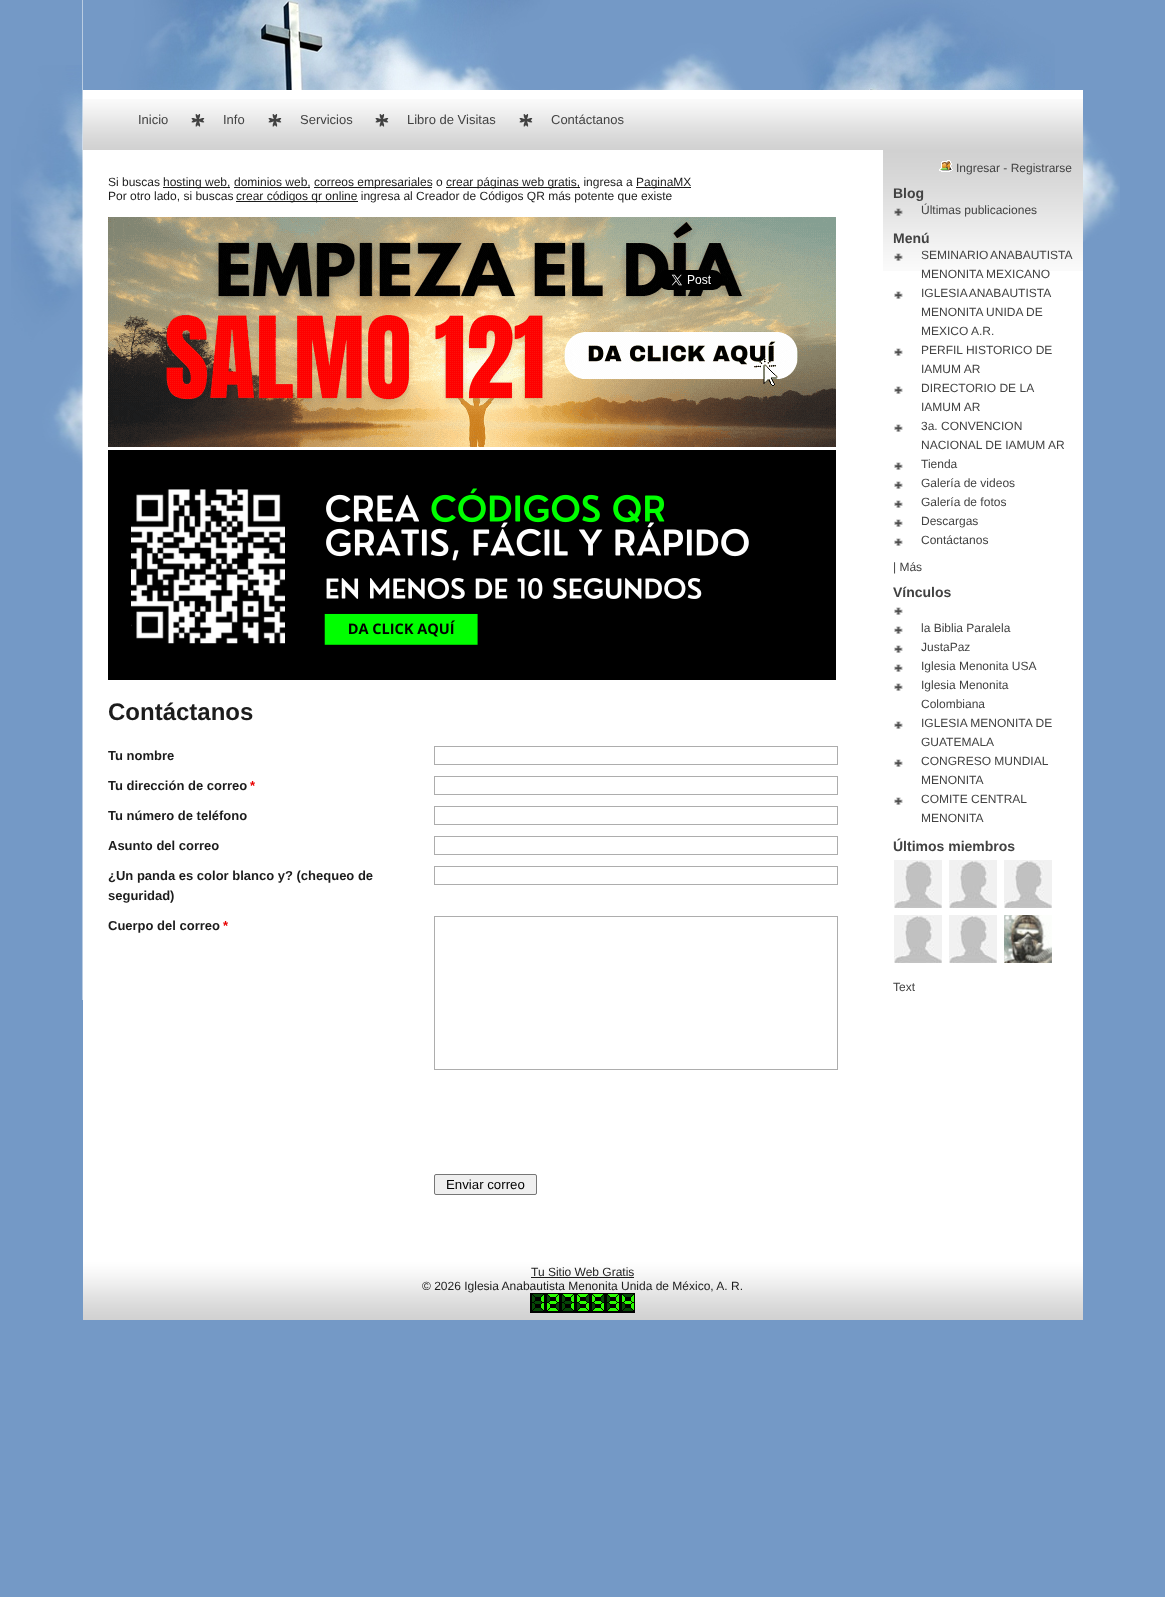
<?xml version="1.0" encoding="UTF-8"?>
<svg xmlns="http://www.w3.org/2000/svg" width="1165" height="1597">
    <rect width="100%" height="100%" fill="#7499C6"/>
    <image x="11" y="0" width="1109" height="1000" href="img_01.png"/>
    <image x="83" y="0" width="1000" height="90" href="img_02.png"/>
    <rect x="1082" y="90" width="1" height="9" fill="#FFFFFF"/>
    <image x="83" y="99" width="1000" height="51" href="img_03.png"/>
    <text x="138" y="124" font-family="Liberation Sans" font-size="13" fill="#424242">Inicio</text>
    <image x="191" y="114" width="14" height="13" href="img_04.png"/>
    <text x="223" y="124" font-family="Liberation Sans" font-size="13" fill="#424242">Info</text>
    <image x="268" y="114" width="14" height="13" href="img_04.png"/>
    <text x="300" y="124" font-family="Liberation Sans" font-size="13" fill="#424242">Servicios</text>
    <image x="375" y="114" width="14" height="13" href="img_04.png"/>
    <text x="407" y="124" font-family="Liberation Sans" font-size="13" fill="#424242">Libro de Visitas</text>
    <image x="519" y="114" width="14" height="13" href="img_04.png"/>
    <text x="551" y="124" font-family="Liberation Sans" font-size="13" fill="#424242">Contáctanos</text>
    <rect x="83" y="1000" width="800" height="260" fill="#FFFFFF"/>
    <text x="108" y="186" font-family="Liberation Sans" font-size="12" fill="#1C1C1C">Si buscas</text>
    <rect x="163" y="187" width="67" height="1" fill="#1C1C1C"/>
    <text x="163" y="186" font-family="Liberation Sans" font-size="12" fill="#1C1C1C">hosting web,</text>
    <rect x="234" y="187" width="76" height="1" fill="#1C1C1C"/>
    <text x="234" y="186" font-family="Liberation Sans" font-size="12" fill="#1C1C1C">dominios web,</text>
    <rect x="314" y="187" width="118" height="1" fill="#1C1C1C"/>
    <text x="314" y="186" font-family="Liberation Sans" font-size="12" fill="#1C1C1C">correos empresariales o</text>
    <rect x="446" y="187" width="134" height="1" fill="#1C1C1C"/>
    <text x="446" y="186" font-family="Liberation Sans" font-size="12" fill="#1C1C1C">crear páginas web gratis, ingresa a</text>
    <rect x="636" y="187" width="55" height="1" fill="#1C1C1C"/>
    <text x="636" y="186" font-family="Liberation Sans" font-size="12" fill="#1C1C1C">PaginaMX</text>
    <text x="108" y="200" font-family="Liberation Sans" font-size="12" fill="#1C1C1C">Por otro lado, si buscas</text>
    <rect x="236" y="201" width="122" height="1" fill="#1C1C1C"/>
    <text x="236" y="200" font-family="Liberation Sans" font-size="12" fill="#1C1C1C">crear códigos qr online ingresa al Creador de Códigos QR más potente que existe</text>
    <image x="108" y="217" width="728" height="230" href="img_05.png"/>
    <image x="108" y="450" width="728" height="230" href="img_06.png"/>
    <image x="660" y="270" width="62" height="20" href="img_07.png"/>
    <text x="108" y="720" font-family="Liberation Sans" font-size="24" font-weight="700" fill="#1C1C1C">Contáctanos</text>
    <text x="108" y="760" font-family="Liberation Sans" font-size="13" font-weight="700" fill="#1C1C1C">Tu nombre</text>
    <rect x="434.5" y="746.5" width="403" height="18" fill="none" stroke="#ADADAD"/>
    <text x="108" y="790" font-family="Liberation Sans" font-size="13" font-weight="700" fill="#1C1C1C">Tu dirección de correo</text>
    <text x="250" y="790" font-family="Liberation Sans" font-size="13" font-weight="700" fill="#E90000">*</text>
    <rect x="434.5" y="776.5" width="403" height="18" fill="none" stroke="#ADADAD"/>
    <text x="108" y="820" font-family="Liberation Sans" font-size="13" font-weight="700" fill="#1C1C1C">Tu número de teléfono</text>
    <rect x="434.5" y="806.5" width="403" height="18" fill="none" stroke="#ADADAD"/>
    <text x="108" y="850" font-family="Liberation Sans" font-size="13" font-weight="700" fill="#1C1C1C">Asunto del correo</text>
    <rect x="434.5" y="836.5" width="403" height="18" fill="none" stroke="#ADADAD"/>
    <text font-family="Liberation Sans" font-size="13" font-weight="700" fill="#1C1C1C">
        <tspan x="108" y="880">¿Un panda es color blanco y? (chequeo de</tspan>
        <tspan x="108" y="900">seguridad)</tspan>
    </text>
    <rect x="434.5" y="866.5" width="403" height="18" fill="none" stroke="#ADADAD"/>
    <text x="108" y="930" font-family="Liberation Sans" font-size="13" font-weight="700" fill="#1C1C1C">Cuerpo del correo</text>
    <text x="223" y="930" font-family="Liberation Sans" font-size="13" font-weight="700" fill="#E90000">*</text>
    <rect x="434.5" y="916.5" width="403" height="153" fill="none" stroke="#ADADAD"/>
    <rect x="434.5" y="1174.5" width="102" height="20" rx="1.5" fill="#EFEFEF" stroke="#767676"/>
    <text x="446" y="1189" font-family="Liberation Sans" font-size="13.25" fill="#000000">Enviar correo</text>
    <rect x="883" y="271" width="200" height="989" fill="#FFFFFF"/>
    <image x="883" y="150" width="200" height="121" href="img_08.png"/>
    <image x="939" y="160" width="14" height="12" href="img_09.png"/>
    <text x="956" y="172" font-family="Liberation Sans" font-size="12" fill="#424242">Ingresar - Registrarse</text>
    <text x="893" y="198" font-family="Liberation Sans" font-size="14" font-weight="700" fill="#424242">Blog</text>
    <image x="894" y="208" width="9" height="8" href="img_10.png"/>
    <text x="921" y="214" font-family="Liberation Sans" font-size="12" fill="#424242">Últimas publicaciones</text>
    <text x="893" y="243" font-family="Liberation Sans" font-size="14" font-weight="700" fill="#424242">Menú</text>
    <image x="894" y="253" width="9" height="8" href="img_11.png"/>
    <text font-family="Liberation Sans" font-size="12" fill="#424242">
        <tspan x="921" y="259" word-spacing="-1">SEMINARIO ANABAUTISTA</tspan>
        <tspan x="921" y="278">MENONITA MEXICANO</tspan>
    </text>
    <image x="894" y="291" width="9" height="8" href="img_12.png"/>
    <text font-family="Liberation Sans" font-size="12" fill="#424242">
        <tspan x="921" y="297" word-spacing="-1">IGLESIA ANABAUTISTA</tspan>
        <tspan x="921" y="316">MENONITA UNIDA DE</tspan>
        <tspan x="921" y="335">MEXICO A.R.</tspan>
    </text>
    <image x="894" y="348" width="9" height="8" href="img_12.png"/>
    <text font-family="Liberation Sans" font-size="12" fill="#424242">
        <tspan x="921" y="354">PERFIL HISTORICO DE</tspan>
        <tspan x="921" y="373">IAMUM AR</tspan>
    </text>
    <image x="894" y="386" width="9" height="8" href="img_12.png"/>
    <text font-family="Liberation Sans" font-size="12" fill="#424242">
        <tspan x="921" y="392">DIRECTORIO DE LA</tspan>
        <tspan x="921" y="411">IAMUM AR</tspan>
    </text>
    <image x="894" y="424" width="9" height="8" href="img_12.png"/>
    <text font-family="Liberation Sans" font-size="12" fill="#424242">
        <tspan x="921" y="430">3a. CONVENCION</tspan>
        <tspan x="921" y="449">NACIONAL DE IAMUM AR</tspan>
    </text>
    <image x="894" y="462" width="9" height="8" href="img_12.png"/>
    <text x="921" y="468" font-family="Liberation Sans" font-size="12" fill="#424242">Tienda</text>
    <image x="894" y="481" width="9" height="8" href="img_12.png"/>
    <text x="921" y="487" font-family="Liberation Sans" font-size="12" fill="#424242">Galería de videos</text>
    <image x="894" y="500" width="9" height="8" href="img_12.png"/>
    <text x="921" y="506" font-family="Liberation Sans" font-size="12" fill="#424242">Galería de fotos</text>
    <image x="894" y="519" width="9" height="8" href="img_12.png"/>
    <text x="921" y="525" font-family="Liberation Sans" font-size="12" fill="#424242">Descargas</text>
    <image x="894" y="538" width="9" height="8" href="img_12.png"/>
    <text x="921" y="544" font-family="Liberation Sans" font-size="12" fill="#424242">Contáctanos</text>
    <text x="893" y="571" font-family="Liberation Sans" font-size="12" fill="#424242">| Más</text>
    <text x="893" y="597" font-family="Liberation Sans" font-size="14" font-weight="700" fill="#424242">Vínculos</text>
    <image x="894" y="607" width="9" height="8" href="img_12.png"/>
    <image x="894" y="626" width="9" height="8" href="img_12.png"/>
    <text x="921" y="632" font-family="Liberation Sans" font-size="12" fill="#424242">la Biblia Paralela</text>
    <image x="894" y="645" width="9" height="8" href="img_12.png"/>
    <text x="921" y="651" font-family="Liberation Sans" font-size="12" fill="#424242">JustaPaz</text>
    <image x="894" y="664" width="9" height="8" href="img_12.png"/>
    <text x="921" y="670" font-family="Liberation Sans" font-size="12" fill="#424242">Iglesia Menonita USA</text>
    <image x="894" y="683" width="9" height="8" href="img_12.png"/>
    <text font-family="Liberation Sans" font-size="12" fill="#424242">
        <tspan x="921" y="689">Iglesia Menonita</tspan>
        <tspan x="921" y="708">Colombiana</tspan>
    </text>
    <image x="894" y="721" width="9" height="8" href="img_12.png"/>
    <text font-family="Liberation Sans" font-size="12" fill="#424242">
        <tspan x="921" y="727">IGLESIA MENONITA DE</tspan>
        <tspan x="921" y="746">GUATEMALA</tspan>
    </text>
    <image x="894" y="759" width="9" height="8" href="img_12.png"/>
    <text font-family="Liberation Sans" font-size="12" fill="#424242">
        <tspan x="921" y="765">CONGRESO MUNDIAL</tspan>
        <tspan x="921" y="784">MENONITA</tspan>
    </text>
    <image x="894" y="797" width="9" height="8" href="img_12.png"/>
    <text font-family="Liberation Sans" font-size="12" fill="#424242">
        <tspan x="921" y="803">COMITE CENTRAL</tspan>
        <tspan x="921" y="822">MENONITA</tspan>
    </text>
    <text x="893" y="851" font-family="Liberation Sans" font-size="14" font-weight="700" fill="#424242">Últimos miembros</text>
    <image x="894" y="860" width="48" height="48" href="img_13.png"/>
    <image x="949" y="860" width="48" height="48" href="img_13.png"/>
    <image x="1004" y="860" width="48" height="48" href="img_13.png"/>
    <image x="894" y="915" width="48" height="48" href="img_13.png"/>
    <image x="949" y="915" width="48" height="48" href="img_13.png"/>
    <image x="1004" y="915" width="48" height="48" href="img_14.png"/>
    <text x="893" y="991" font-family="Liberation Sans" font-size="12" fill="#424242">Text</text>
    <image x="83" y="1260" width="1000" height="60" href="img_15.png"/>
    <text x="531" y="1276" font-family="Liberation Sans" font-size="12" fill="#1C1C1C">Tu Sitio Web Gratis</text>
    <rect x="531" y="1277" width="103" height="1" fill="#1C1C1C"/>
    <text x="422" y="1290" font-family="Liberation Sans" font-size="12" fill="#1C1C1C">© 2026 Iglesia Anabautista Menonita Unida de México, A. R.</text>
    <image x="530" y="1293" width="15" height="20" href="img_16.png"/>
    <image x="545" y="1293" width="15" height="20" href="img_17.png"/>
    <image x="560" y="1293" width="15" height="20" href="img_18.png"/>
    <image x="575" y="1293" width="15" height="20" href="img_19.png"/>
    <image x="590" y="1293" width="15" height="20" href="img_19.png"/>
    <image x="605" y="1293" width="15" height="20" href="img_20.png"/>
    <image x="620" y="1293" width="15" height="20" href="img_21.png"/>
</svg>
